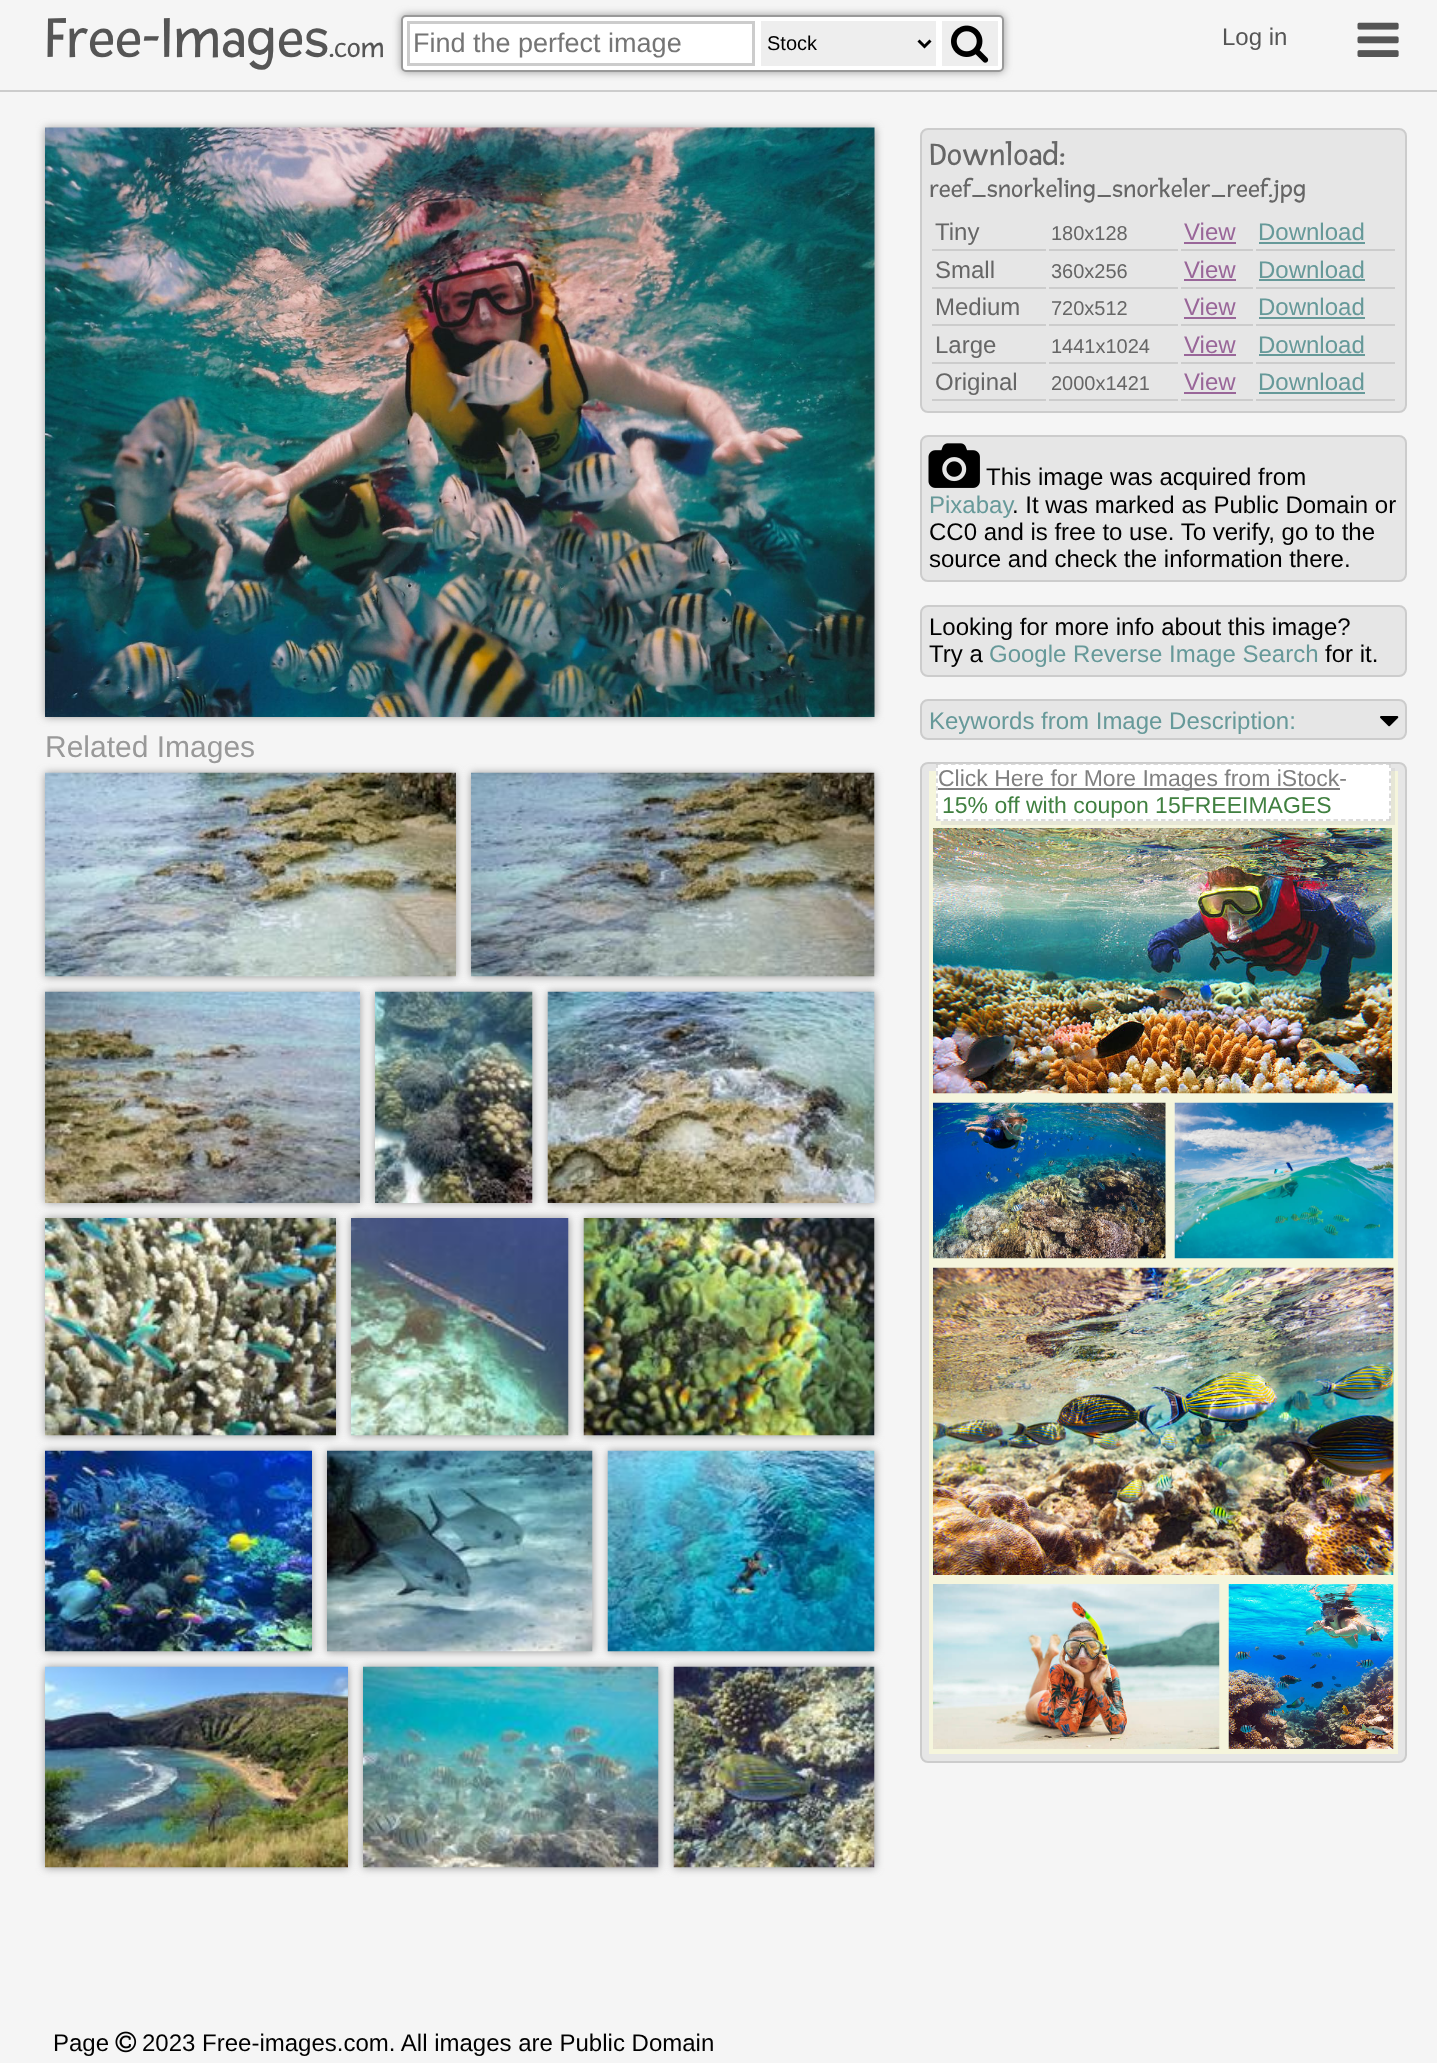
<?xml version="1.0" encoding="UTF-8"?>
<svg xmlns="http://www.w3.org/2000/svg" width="1437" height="2063">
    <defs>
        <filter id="blur1" x="-50%" y="-200%" width="200%" height="500%"><feGaussianBlur stdDeviation="4"/></filter>
    </defs>
    <rect width="100%" height="100%" fill="#F5F5F5"/>
    <rect x="0" y="90" width="1437" height="2" fill="#CCCCCC"/>
    <text x="45" y="57" font-family="Fresca" font-size="60" fill="#555555">Free-Images</text>
    <text x="329" y="57" font-family="Fresca" font-size="30" fill="#555555">.com</text>
    <rect x="401" y="15" width="603" height="57" rx="5" fill="#999999" filter="url(#blur1)"/>
    <rect x="402" y="16" width="601" height="55" rx="4" fill="#FFFFFF" stroke="#999999" stroke-width="2"/>
    <rect x="408.5" y="22.5" width="345" height="42" fill="none" stroke="#CCCCCC" stroke-width="3"/>
    <text x="413" y="52" font-family="Liberation Sans" font-size="27" fill="#757575">Find the perfect image</text>
    <rect x="761" y="21" width="175" height="45" fill="#EEEEEE"/>
    <path d="M 918.5 40.5 L 924.5 46.5 L 930.5 40.5" fill="none" stroke="#000000" stroke-width="3"/>
    <text x="767" y="50" font-family="Liberation Sans" font-size="20" fill="#000000">Stock</text>
    <rect x="942" y="21" width="56" height="45" fill="#EEEEEE"/>
    <image x="951" y="25" width="38" height="38" href="img_01.png"/>
    <text x="1222" y="45" font-family="Liberation Sans" font-size="24" fill="#555555">Log in</text>
    <image x="1357" y="22" width="42" height="35" href="img_02.png"/>
    <rect x="45" y="128" width="830" height="589" fill="#999999" filter="url(#blur1)"/>
    <image x="45" y="127" width="830" height="590" href="img_03.png"/>
    <text x="45" y="757" font-family="Liberation Sans" font-size="30" fill="#999999">Related Images</text>
    <rect x="45" y="773" width="411" height="204" fill="#999999" filter="url(#blur1)"/>
    <image x="45" y="772" width="411" height="205" href="img_04.png"/>
    <rect x="471" y="773" width="404" height="204" fill="#999999" filter="url(#blur1)"/>
    <image x="471" y="772" width="404" height="205" href="img_05.png"/>
    <rect x="45" y="992" width="315" height="211" fill="#999999" filter="url(#blur1)"/>
    <image x="45" y="991" width="315" height="212" href="img_06.png"/>
    <rect x="375" y="992" width="158" height="211" fill="#999999" filter="url(#blur1)"/>
    <image x="375" y="991" width="158" height="212" href="img_07.png"/>
    <rect x="548" y="992" width="327" height="211" fill="#999999" filter="url(#blur1)"/>
    <image x="547" y="991" width="328" height="212" href="img_08.png"/>
    <rect x="45" y="1218" width="291" height="218" fill="#999999" filter="url(#blur1)"/>
    <image x="45" y="1218" width="291" height="218" href="img_09.png"/>
    <rect x="351" y="1218" width="218" height="218" fill="#999999" filter="url(#blur1)"/>
    <image x="351" y="1218" width="218" height="218" href="img_10.png"/>
    <rect x="584" y="1218" width="291" height="218" fill="#999999" filter="url(#blur1)"/>
    <image x="583" y="1218" width="292" height="218" href="img_11.png"/>
    <rect x="45" y="1451" width="267" height="201" fill="#999999" filter="url(#blur1)"/>
    <image x="45" y="1450" width="267" height="202" href="img_12.png"/>
    <rect x="327" y="1451" width="266" height="201" fill="#999999" filter="url(#blur1)"/>
    <image x="327" y="1450" width="266" height="202" href="img_13.png"/>
    <rect x="608" y="1451" width="267" height="201" fill="#999999" filter="url(#blur1)"/>
    <image x="607" y="1450" width="268" height="202" href="img_14.png"/>
    <rect x="45" y="1667" width="303" height="201" fill="#999999" filter="url(#blur1)"/>
    <image x="45" y="1666" width="303" height="202" href="img_15.png"/>
    <rect x="363" y="1667" width="296" height="201" fill="#999999" filter="url(#blur1)"/>
    <image x="363" y="1666" width="296" height="202" href="img_16.png"/>
    <rect x="674" y="1667" width="201" height="201" fill="#999999" filter="url(#blur1)"/>
    <image x="673" y="1666" width="202" height="202" href="img_17.png"/>
    <rect x="921" y="129" width="485" height="283" rx="7" fill="#E6E6E6" stroke="#CCCCCC" stroke-width="2"/>
    <text x="929" y="165" font-family="Fresca" font-size="33" fill="#666666">Download:</text>
    <text x="929" y="197" font-family="Fresca" font-size="26.4" fill="#666666">reef_snorkeling_snorkeler_reef.jpg</text>
    <rect x="932" y="249" width="114" height="2" fill="#CCCCCC"/>
    <text x="935" y="240" font-family="Liberation Sans" font-size="24" fill="#666666">Tiny</text>
    <rect x="1049" y="249" width="129" height="2" fill="#CCCCCC"/>
    <text x="1051" y="240" font-family="Liberation Sans" font-size="20" fill="#666666">180x128</text>
    <rect x="1181" y="249" width="72" height="2" fill="#CCCCCC"/>
    <text x="1184" y="240" font-family="Liberation Sans" font-size="24" fill="#996699">View</text>
    <rect x="1184" y="242" width="52" height="2" fill="#996699"/>
    <rect x="1256" y="249" width="139" height="2" fill="#CCCCCC"/>
    <text x="1258" y="240" font-family="Liberation Sans" font-size="24" fill="#669999">Download</text>
    <rect x="1259" y="242" width="106" height="2" fill="#669999"/>
    <rect x="932" y="287" width="114" height="2" fill="#CCCCCC"/>
    <text x="935" y="278" font-family="Liberation Sans" font-size="24" fill="#666666">Small</text>
    <rect x="1049" y="287" width="129" height="2" fill="#CCCCCC"/>
    <text x="1051" y="278" font-family="Liberation Sans" font-size="20" fill="#666666">360x256</text>
    <rect x="1181" y="287" width="72" height="2" fill="#CCCCCC"/>
    <text x="1184" y="278" font-family="Liberation Sans" font-size="24" fill="#996699">View</text>
    <rect x="1184" y="279" width="52" height="2" fill="#996699"/>
    <rect x="1256" y="287" width="139" height="2" fill="#CCCCCC"/>
    <text x="1258" y="278" font-family="Liberation Sans" font-size="24" fill="#669999">Download</text>
    <rect x="1259" y="279" width="106" height="2" fill="#669999"/>
    <rect x="932" y="324" width="114" height="2" fill="#CCCCCC"/>
    <text x="935" y="315" font-family="Liberation Sans" font-size="24" fill="#666666">Medium</text>
    <rect x="1049" y="324" width="129" height="2" fill="#CCCCCC"/>
    <text x="1051" y="315" font-family="Liberation Sans" font-size="20" fill="#666666">720x512</text>
    <rect x="1181" y="324" width="72" height="2" fill="#CCCCCC"/>
    <text x="1184" y="315" font-family="Liberation Sans" font-size="24" fill="#996699">View</text>
    <rect x="1184" y="317" width="52" height="2" fill="#996699"/>
    <rect x="1256" y="324" width="139" height="2" fill="#CCCCCC"/>
    <text x="1258" y="315" font-family="Liberation Sans" font-size="24" fill="#669999">Download</text>
    <rect x="1259" y="317" width="106" height="2" fill="#669999"/>
    <rect x="932" y="362" width="114" height="2" fill="#CCCCCC"/>
    <text x="935" y="353" font-family="Liberation Sans" font-size="24" fill="#666666">Large</text>
    <rect x="1049" y="362" width="129" height="2" fill="#CCCCCC"/>
    <text x="1051" y="353" font-family="Liberation Sans" font-size="20" fill="#666666">1441x1024</text>
    <rect x="1181" y="362" width="72" height="2" fill="#CCCCCC"/>
    <text x="1184" y="353" font-family="Liberation Sans" font-size="24" fill="#996699">View</text>
    <rect x="1184" y="354" width="52" height="2" fill="#996699"/>
    <rect x="1256" y="362" width="139" height="2" fill="#CCCCCC"/>
    <text x="1258" y="353" font-family="Liberation Sans" font-size="24" fill="#669999">Download</text>
    <rect x="1259" y="354" width="106" height="2" fill="#669999"/>
    <rect x="932" y="399" width="114" height="2" fill="#CCCCCC"/>
    <text x="935" y="390" font-family="Liberation Sans" font-size="24" fill="#666666">Original</text>
    <rect x="1049" y="399" width="129" height="2" fill="#CCCCCC"/>
    <text x="1051" y="390" font-family="Liberation Sans" font-size="20" fill="#666666">2000x1421</text>
    <rect x="1181" y="399" width="72" height="2" fill="#CCCCCC"/>
    <text x="1184" y="390" font-family="Liberation Sans" font-size="24" fill="#996699">View</text>
    <rect x="1184" y="392" width="52" height="2" fill="#996699"/>
    <rect x="1256" y="399" width="139" height="2" fill="#CCCCCC"/>
    <text x="1258" y="390" font-family="Liberation Sans" font-size="24" fill="#669999">Download</text>
    <rect x="1259" y="392" width="106" height="2" fill="#669999"/>
    <rect x="921" y="436" width="485" height="145" rx="7" fill="#E6E6E6" stroke="#CCCCCC" stroke-width="2"/>
    <image x="928" y="443" width="52" height="45" href="img_18.png"/>
    <text x="986" y="485" font-family="Liberation Sans" font-size="24" fill="#000000">This image was acquired from</text>
    <text x="929" y="513" font-family="Liberation Sans" font-size="24" fill="#669999">Pixabay</text>
    <text x="1012" y="513" font-family="Liberation Sans" font-size="24" fill="#000000">. It was marked as Public Domain or</text>
    <text font-family="Liberation Sans" font-size="24" fill="#000000">
        <tspan x="929" y="540">CC0 and is free to use. To verify, go to the</tspan>
        <tspan x="929" y="567">source and check the information there.</tspan>
    </text>
    <rect x="921" y="606" width="485" height="70" rx="7" fill="#E6E6E6" stroke="#CCCCCC" stroke-width="2"/>
    <text font-family="Liberation Sans" font-size="24" fill="#000000">
        <tspan x="929" y="635">Looking for more info about this image?</tspan>
        <tspan x="929" y="662">Try a</tspan>
    </text>
    <text x="989" y="662" font-family="Liberation Sans" font-size="24" fill="#669999">Google Reverse Image Search</text>
    <text x="1325" y="662" font-family="Liberation Sans" font-size="24" fill="#000000">for it.</text>
    <rect x="921" y="700" width="485" height="39" rx="7" fill="#E6E6E6" stroke="#CCCCCC" stroke-width="2"/>
    <text x="929" y="729" font-family="Liberation Sans" font-size="24" fill="#669999">Keywords from Image Description:</text>
    <image x="1380" y="716" width="19" height="11" href="img_19.png"/>
    <rect x="921" y="763" width="485" height="999" rx="7" fill="#E6E6E6" stroke="#CCCCCC" stroke-width="2"/>
    <rect x="929" y="771" width="469" height="983" fill="#F5F5DC"/>
    <path d="M 941 820 V 825 H 1395 V 768 H 1390 V 820 Z" fill="#CCCCCC" fill-opacity="0.38"/>
    <rect x="936" y="764" width="455" height="57" fill="#FFFFFF"/>
    <path d="M 936 764 H 1390.5" fill="none" stroke="#D0D0D0" stroke-width="1.5" stroke-dasharray="4.5 3"/>
    <path d="M 1390 763.5 V 820.5" fill="none" stroke="#D0D0D0" stroke-width="1.5" stroke-dasharray="4.5 3"/>
    <path d="M 936 820 H 1390.5" fill="none" stroke="#D0D0D0" stroke-width="1.5" stroke-dasharray="4.5 3"/>
    <path d="M 937 763.5 V 820.5" fill="none" stroke="#D0D0D0" stroke-width="1.5" stroke-dasharray="4.5 3"/>
    <rect x="938" y="788" width="402" height="2" fill="#808080"/>
    <text x="938" y="786" font-family="Liberation Sans" font-size="23" fill="#808080">Click Here for More Images from iStock-</text>
    <text x="942" y="813" font-family="Liberation Sans" font-size="23" fill="#408040">15% off with coupon 15FREEIMAGES</text>
    <image x="933" y="828" width="459" height="266" href="img_20.png"/>
    <image x="933" y="1102" width="233" height="157" href="img_21.png"/>
    <image x="1174" y="1102" width="220" height="157" href="img_22.png"/>
    <image x="933" y="1267" width="461" height="308" href="img_23.png"/>
    <image x="933" y="1584" width="287" height="165" href="img_24.png"/>
    <image x="1228" y="1584" width="166" height="165" href="img_25.png"/>
    <text x="53" y="2051" font-family="Liberation Sans" font-size="24" fill="#000000">Page</text>
    <image x="115" y="2031" width="22" height="22" href="img_26.png"/>
    <text x="142" y="2051" font-family="Liberation Sans" font-size="24" fill="#000000">2023 Free-images.com. All images are Public Domain</text>
</svg>
